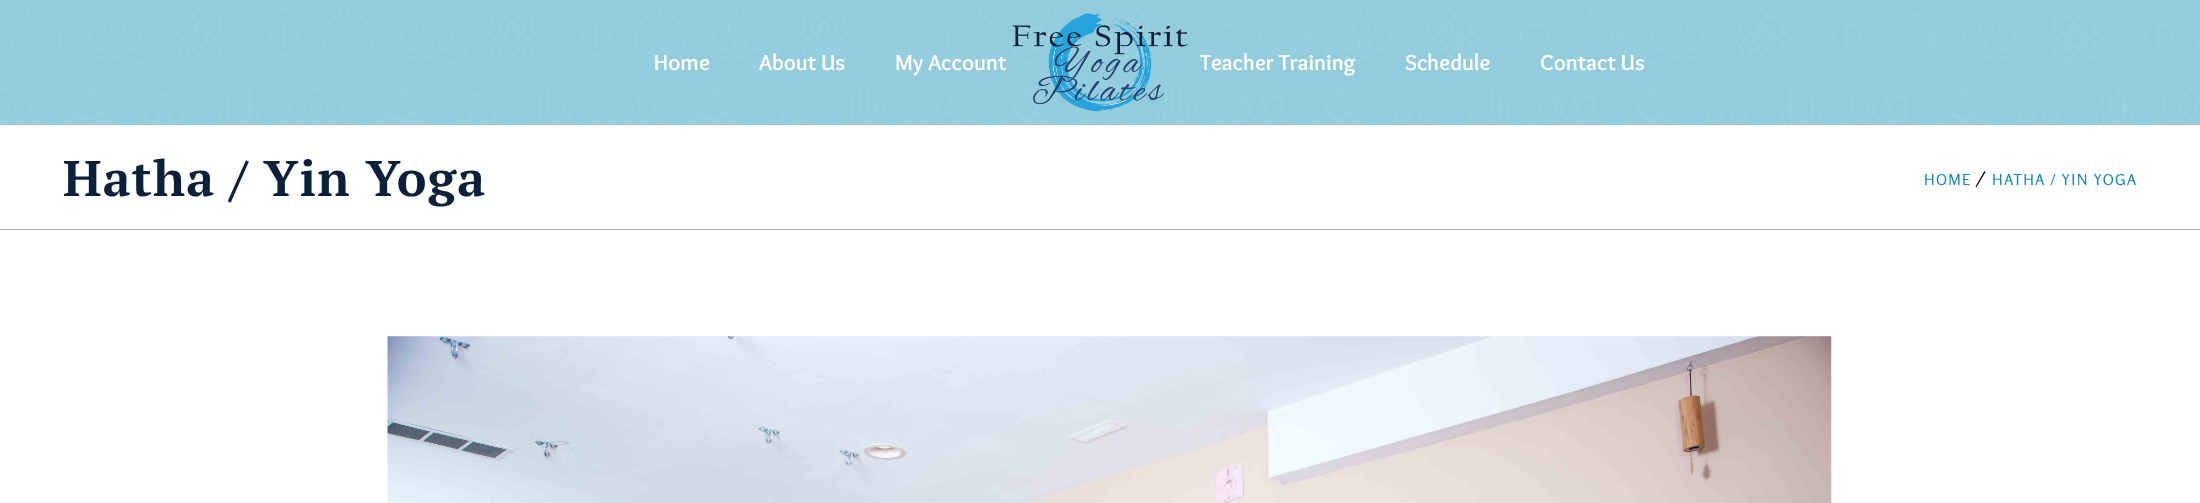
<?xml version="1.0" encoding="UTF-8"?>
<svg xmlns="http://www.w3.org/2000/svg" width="2200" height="503">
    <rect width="100%" height="100%" fill="#FFFFFF"/>
    <rect x="0" y="0" width="2200" height="125" fill="#93CDDD"/>
    <image x="0" y="8" width="2200" height="117" href="img_01.png"/>
    <image x="1012" y="13" width="176" height="99" href="img_02.png"/>
    <text x="654" y="70" font-family="Overlock" font-size="22.5" font-weight="700" fill="#FFFFFF">Home</text>
    <text x="759" y="70" font-family="Overlock" font-size="22.5" font-weight="700" fill="#FFFFFF">About Us</text>
    <text x="895" y="70" font-family="Overlock" font-size="22.5" font-weight="700" fill="#FFFFFF">My Account</text>
    <text x="1200" y="70" font-family="Overlock" font-size="22.5" font-weight="700" fill="#FFFFFF">Teacher Training</text>
    <text x="1405" y="70" font-family="Overlock" font-size="22.5" font-weight="700" fill="#FFFFFF">Schedule</text>
    <text x="1540" y="70" font-family="Overlock" font-size="22.5" font-weight="700" fill="#FFFFFF">Contact Us</text>
    <rect x="0" y="229" width="2200" height="1" fill="#B3B3B3"/>
    <text x="63" y="196" font-family="PT Serif" font-size="50" font-weight="700" letter-spacing="1.25" fill="#0B213B">Hatha / Yin Yoga</text>
    <text x="1924" y="185" font-family="Rosario" font-size="15" letter-spacing="1.25" fill="#1B87B9">HOME</text>
    <path d="M 1984.5 171 L 1985.5 172 L 1976.5 187 L 1975.5 186.5 Z" fill="#000000"/>
    <text x="1992" y="185" font-family="Rosario" font-size="15" letter-spacing="1.25" fill="#1B87B9">HATHA / YIN YOGA</text>
    <image x="387" y="336" width="1445" height="167" href="img_03.png"/>
</svg>
